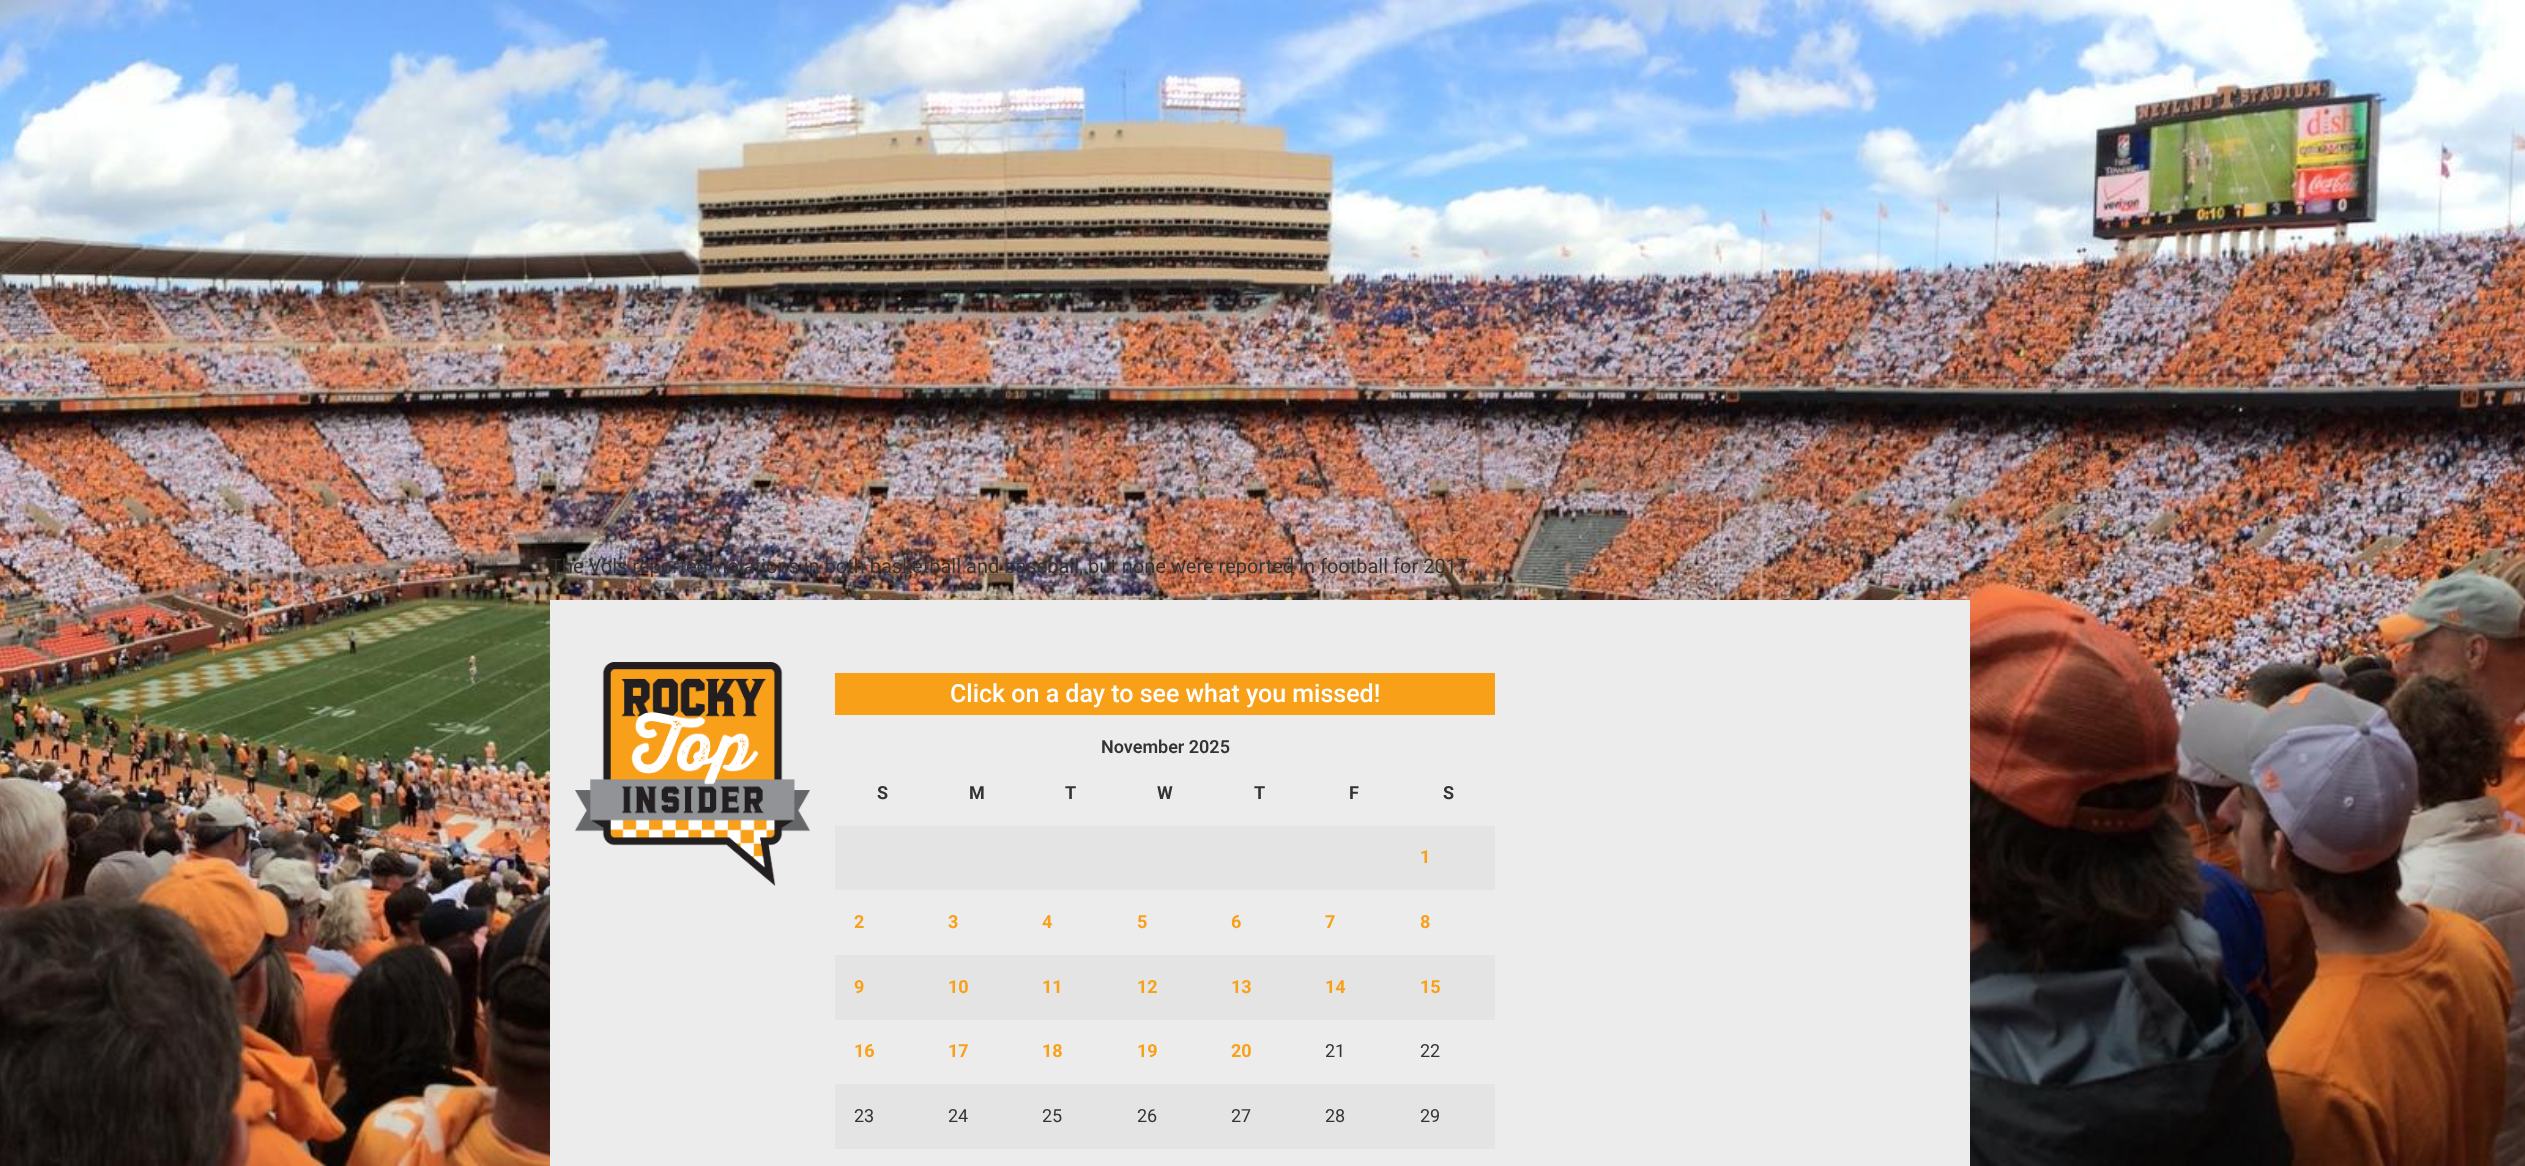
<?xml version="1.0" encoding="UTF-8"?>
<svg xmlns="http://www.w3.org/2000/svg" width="2525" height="1166">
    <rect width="100%" height="100%" fill="#FFFFFF"/>
    <image x="0" y="0" width="2525" height="1166" href="img_01.png"/>
    <text x="550" y="573" font-family="Roboto" font-size="20" fill="#333333">The Vols reported violations in both basketball and baseball, but none were reported in football for 2017.</text>
    <rect x="550" y="600" width="1420" height="566" fill="#ECECEC"/>
    <image x="575" y="662" width="235" height="224" href="img_02.png"/>
    <rect x="835" y="673" width="660" height="42" fill="#F9A019"/>
    <text x="950" y="702" font-family="Roboto" font-size="25" font-weight="500" fill="#FFFFFF">Click on a day to see what you missed!</text>
    <text x="1101" y="753" font-family="Roboto" font-size="18" font-weight="600" fill="#333333">November 2025</text>
    <text x="877" y="799" font-family="Roboto" font-size="18" font-weight="700" fill="#333333">S</text>
    <text x="969" y="799" font-family="Roboto" font-size="18" font-weight="700" fill="#333333">M</text>
    <text x="1065" y="799" font-family="Roboto" font-size="18" font-weight="700" fill="#333333">T</text>
    <text x="1157" y="799" font-family="Roboto" font-size="18" font-weight="700" fill="#333333">W</text>
    <text x="1254" y="799" font-family="Roboto" font-size="18" font-weight="700" fill="#333333">T</text>
    <text x="1349" y="799" font-family="Roboto" font-size="18" font-weight="700" fill="#333333">F</text>
    <text x="1443" y="799" font-family="Roboto" font-size="18" font-weight="700" fill="#333333">S</text>
    <rect x="835" y="826" width="660" height="64" fill="#E4E4E4"/>
    <text x="1420" y="863" font-family="Roboto" font-size="18" font-weight="700" fill="#F9A019">1</text>
    <text x="854" y="928" font-family="Roboto" font-size="18" font-weight="700" fill="#F9A019">2</text>
    <text x="948" y="928" font-family="Roboto" font-size="18" font-weight="700" fill="#F9A019">3</text>
    <text x="1042" y="928" font-family="Roboto" font-size="18" font-weight="700" fill="#F9A019">4</text>
    <text x="1137" y="928" font-family="Roboto" font-size="18" font-weight="700" fill="#F9A019">5</text>
    <text x="1231" y="928" font-family="Roboto" font-size="18" font-weight="700" fill="#F9A019">6</text>
    <text x="1325" y="928" font-family="Roboto" font-size="18" font-weight="700" fill="#F9A019">7</text>
    <text x="1420" y="928" font-family="Roboto" font-size="18" font-weight="700" fill="#F9A019">8</text>
    <rect x="835" y="955" width="660" height="65" fill="#E4E4E4"/>
    <text x="854" y="993" font-family="Roboto" font-size="18" font-weight="700" fill="#F9A019">9</text>
    <text x="948" y="993" font-family="Roboto" font-size="18" font-weight="700" fill="#F9A019">10</text>
    <text x="1042" y="993" font-family="Roboto" font-size="18" font-weight="700" fill="#F9A019">11</text>
    <text x="1137" y="993" font-family="Roboto" font-size="18" font-weight="700" fill="#F9A019">12</text>
    <text x="1231" y="993" font-family="Roboto" font-size="18" font-weight="700" fill="#F9A019">13</text>
    <text x="1325" y="993" font-family="Roboto" font-size="18" font-weight="700" fill="#F9A019">14</text>
    <text x="1420" y="993" font-family="Roboto" font-size="18" font-weight="700" fill="#F9A019">15</text>
    <text x="854" y="1057" font-family="Roboto" font-size="18" font-weight="700" fill="#F9A019">16</text>
    <text x="948" y="1057" font-family="Roboto" font-size="18" font-weight="700" fill="#F9A019">17</text>
    <text x="1042" y="1057" font-family="Roboto" font-size="18" font-weight="700" fill="#F9A019">18</text>
    <text x="1137" y="1057" font-family="Roboto" font-size="18" font-weight="700" fill="#F9A019">19</text>
    <text x="1231" y="1057" font-family="Roboto" font-size="18" font-weight="700" fill="#F9A019">20</text>
    <text x="1325" y="1057" font-family="Roboto" font-size="18" fill="#333333">21</text>
    <text x="1420" y="1057" font-family="Roboto" font-size="18" fill="#333333">22</text>
    <rect x="835" y="1084" width="660" height="65" fill="#E4E4E4"/>
    <text x="854" y="1122" font-family="Roboto" font-size="18" fill="#333333">23</text>
    <text x="948" y="1122" font-family="Roboto" font-size="18" fill="#333333">24</text>
    <text x="1042" y="1122" font-family="Roboto" font-size="18" fill="#333333">25</text>
    <text x="1137" y="1122" font-family="Roboto" font-size="18" fill="#333333">26</text>
    <text x="1231" y="1122" font-family="Roboto" font-size="18" fill="#333333">27</text>
    <text x="1325" y="1122" font-family="Roboto" font-size="18" fill="#333333">28</text>
    <text x="1420" y="1122" font-family="Roboto" font-size="18" fill="#333333">29</text>
</svg>
